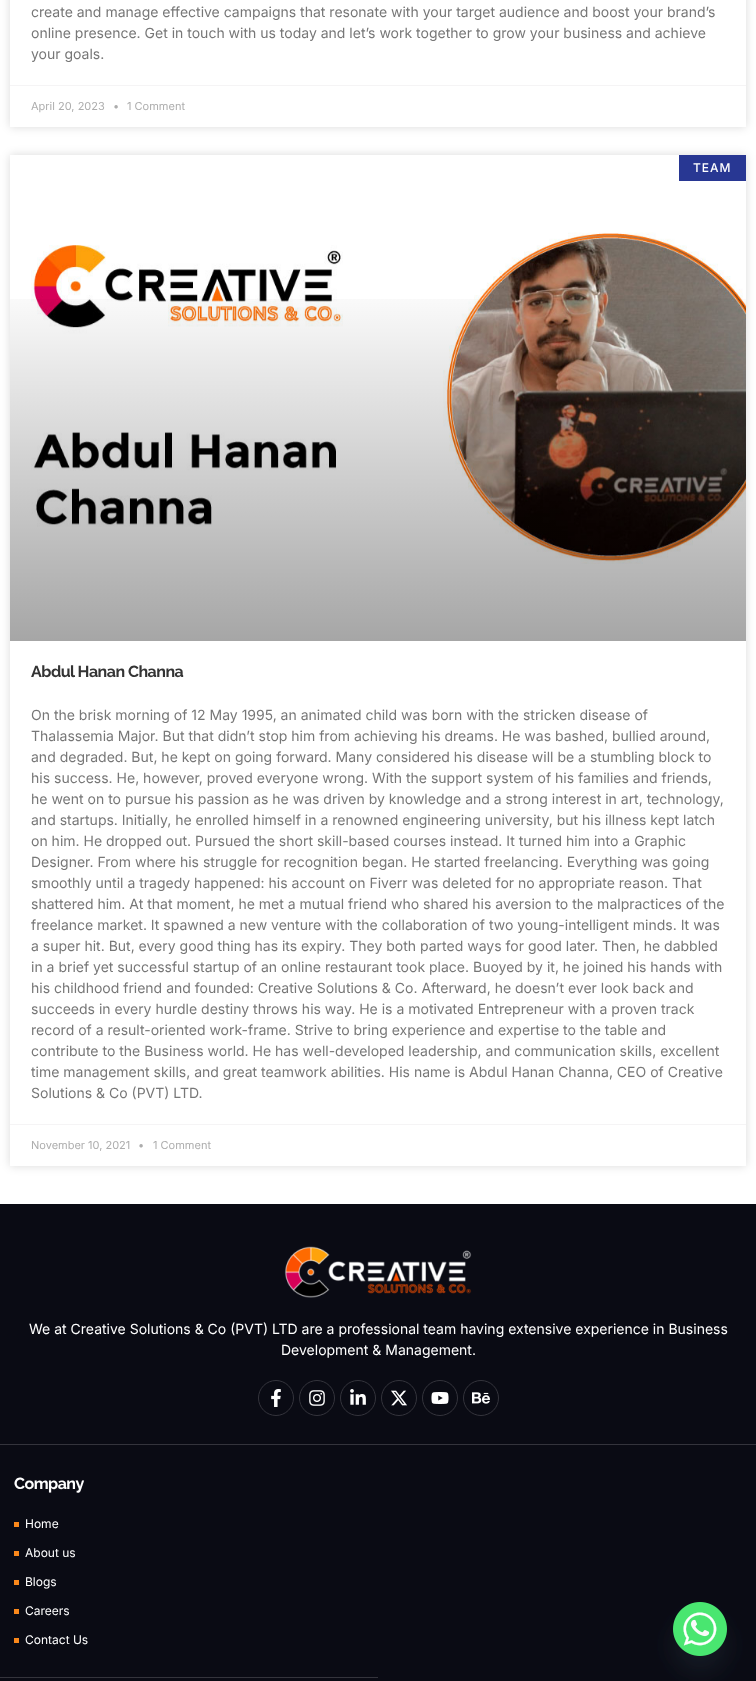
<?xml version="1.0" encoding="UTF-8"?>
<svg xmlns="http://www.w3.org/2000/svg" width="756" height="1681">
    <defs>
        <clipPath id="clip1"><path d="M 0 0 H 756 V 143 H 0 Z M 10 -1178 H 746 V 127 H 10 Z" clip-rule="evenodd"/></clipPath>
        <filter id="blur1" x="-50%" y="-200%" width="200%" height="500%"><feGaussianBlur stdDeviation="5"/></filter>
        <clipPath id="clip2"><path d="M 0 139 H 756 V 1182 H 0 Z M 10 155 H 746 V 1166 H 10 Z" clip-rule="evenodd"/></clipPath>
        <linearGradient id="g1" gradientUnits="userSpaceOnUse" x1="378" y1="641" x2="378" y2="155"><stop offset="0" stop-color="#000000" stop-opacity="0.35"/><stop offset="0.75" stop-color="#000000" stop-opacity="0"/></linearGradient>
        <filter id="blur2" x="-50%" y="-200%" width="200%" height="500%"><feGaussianBlur stdDeviation="12"/></filter>
    </defs>
    <rect width="100%" height="100%" fill="#FFFFFF"/>
    <g clip-path="url(#clip1)">
        <rect x="10" y="-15" width="736" height="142" fill="#000000" fill-opacity="0.15" filter="url(#blur1)"/>
    </g>
    <text font-family="Inter" font-size="14" fill="#777777">
        <tspan x="31" y="17">create and manage effective campaigns that resonate with your target audience and boost your brand’s</tspan>
        <tspan x="31" y="38">online presence. Get in touch with us today and let’s work together to grow your business and achieve</tspan>
        <tspan x="31" y="59">your goals.</tspan>
    </text>
    <rect x="10" y="85" width="736" height="1" fill="#F5F4F5"/>
    <text x="31" y="110" font-family="Inter" font-size="11" fill="#ADADAD">April 20, 2023</text>
    <text x="113" y="110" font-family="Inter" font-size="11" fill="#ADADAD">•</text>
    <text x="127" y="110" font-family="Inter" font-size="11" fill="#ADADAD">1 Comment</text>
    <g clip-path="url(#clip2)">
        <rect x="10" y="155" width="736" height="1011" fill="#000000" fill-opacity="0.15" filter="url(#blur1)"/>
    </g>
    <rect x="679" y="155" width="67" height="26" fill="#283793"/>
    <text x="693" y="172" font-family="Inter" font-size="12" font-weight="500" letter-spacing="1" fill="#FFFFFF">TEAM</text>
    <image x="31" y="232" width="715" height="332" href="img_01.png"/>
    <rect x="10" y="299" width="736" height="342" fill="url(#g1)"/>
    <text x="31" y="677" font-family="Raleway" font-size="16" font-weight="700" letter-spacing="-0.5" fill="#343434">Abdul Hanan Channa</text>
    <text font-family="Inter" font-size="14" fill="#777777">
        <tspan x="31" y="720">On the brisk morning of 12 May 1995, an animated child was born with the stricken disease of</tspan>
        <tspan x="31" y="741">Thalassemia Major. But that didn’t stop him from achieving his dreams. He was bashed, bullied around,</tspan>
        <tspan x="31" y="762">and degraded. But, he kept on going forward. Many considered his disease will be a stumbling block to</tspan>
        <tspan x="31" y="783">his success. He, however, proved everyone wrong. With the support system of his families and friends,</tspan>
        <tspan x="31" y="804">he went on to pursue his passion as he was driven by knowledge and a strong interest in art, technology,</tspan>
        <tspan x="31" y="825">and startups. Initially, he enrolled himself in a renowned engineering university, but his illness kept latch</tspan>
        <tspan x="31" y="846">on him. He dropped out. Pursued the short skill-based courses instead. It turned him into a Graphic</tspan>
        <tspan x="31" y="867">Designer. From where his struggle for recognition began. He started freelancing. Everything was going</tspan>
        <tspan x="31" y="888">smoothly until a tragedy happened: his account on Fiverr was deleted for no appropriate reason. That</tspan>
        <tspan x="31" y="909">shattered him. At that moment, he met a mutual friend who shared his aversion to the malpractices of the</tspan>
        <tspan x="31" y="930">freelance market. It spawned a new venture with the collaboration of two young-intelligent minds. It was</tspan>
        <tspan x="31" y="951">a super hit. But, every good thing has its expiry. They both parted ways for good later. Then, he dabbled</tspan>
        <tspan x="31" y="972">in a brief yet successful startup of an online restaurant took place. Buoyed by it, he joined his hands with</tspan>
        <tspan x="31" y="993">his childhood friend and founded: Creative Solutions &amp; Co. Afterward, he doesn’t ever look back and</tspan>
        <tspan x="31" y="1014">succeeds in every hurdle destiny throws his way. He is a motivated Entrepreneur with a proven track</tspan>
        <tspan x="31" y="1035">record of a result-oriented work-frame. Strive to bring experience and expertise to the table and</tspan>
        <tspan x="31" y="1056">contribute to the Business world. He has well-developed leadership, and communication skills, excellent</tspan>
        <tspan x="31" y="1077">time management skills, and great teamwork abilities. His name is Abdul Hanan Channa, CEO of Creative</tspan>
        <tspan x="31" y="1098">Solutions &amp; Co (PVT) LTD.</tspan>
    </text>
    <rect x="10" y="1124" width="736" height="1" fill="#F5F4F5"/>
    <text x="31" y="1149" font-family="Inter" font-size="11" fill="#ADADAD">November 10, 2021</text>
    <text x="138" y="1149" font-family="Inter" font-size="11" fill="#ADADAD">•</text>
    <text x="153" y="1149" font-family="Inter" font-size="11" fill="#ADADAD">1 Comment</text>
    <rect x="0" y="1204" width="756" height="477" fill="#0A0B14"/>
    <rect x="0" y="1444" width="756" height="1" fill="#34343C"/>
    <image x="284" y="1246" width="188" height="52" href="img_02.png"/>
    <text x="29" y="1334" font-family="Inter" font-size="14" fill="#FFFFFF">We at Creative Solutions &amp; Co (PVT) LTD are a professional team having extensive experience in Business</text>
    <text x="281" y="1355" font-family="Inter" font-size="14" fill="#FFFFFF">Development &amp; Management.</text>
    <circle cx="276" cy="1398" r="17.5" fill="none" stroke="#34343C"/>
    <image x="271" y="1389" width="10" height="18" href="img_03.png"/>
    <circle cx="317" cy="1398" r="17.5" fill="none" stroke="#34343C"/>
    <image x="309" y="1390" width="16" height="16" href="img_04.png"/>
    <circle cx="358" cy="1398" r="17.5" fill="none" stroke="#34343C"/>
    <image x="350" y="1389" width="16" height="16" href="img_05.png"/>
    <circle cx="399" cy="1398" r="17.5" fill="none" stroke="#34343C"/>
    <image x="391" y="1390" width="16" height="16" href="img_06.png"/>
    <circle cx="440" cy="1398" r="17.5" fill="none" stroke="#34343C"/>
    <image x="431" y="1392" width="18" height="12" href="img_07.png"/>
    <circle cx="481" cy="1398" r="17.5" fill="none" stroke="#34343C"/>
    <image x="472" y="1392" width="18" height="12" href="img_08.png"/>
    <rect x="0" y="1677" width="378" height="1" fill="#34343C"/>
    <text x="14" y="1489" font-family="Raleway" font-size="16" font-weight="700" letter-spacing="-0.5" fill="#FFFFFF">Company</text>
    <path d="M 19 1527 H 14 V 1522 H 19 Z" fill="#FA881B"/>
    <text x="25" y="1528" font-family="Inter" font-size="12" fill="#FFFFFF">Home</text>
    <path d="M 19 1556 H 14 V 1551 H 19 Z" fill="#FA881B"/>
    <text x="25" y="1557" font-family="Inter" font-size="12" fill="#FFFFFF">About us</text>
    <path d="M 19 1585 H 14 V 1580 H 19 Z" fill="#FA881B"/>
    <text x="25" y="1586" font-family="Inter" font-size="12" fill="#FFFFFF">Blogs</text>
    <path d="M 19 1614 H 14 V 1609 H 19 Z" fill="#FA881B"/>
    <text x="25" y="1615" font-family="Inter" font-size="12" fill="#FFFFFF">Careers</text>
    <path d="M 19 1643 H 14 V 1638 H 19 Z" fill="#FA881B"/>
    <text x="25" y="1644" font-family="Inter" font-size="12" fill="#FFFFFF">Contact Us</text>
    <rect x="673" y="1618" width="54" height="54" rx="27" fill="#49687E" fill-opacity="0.16" filter="url(#blur2)"/>
    <image x="673" y="1602" width="54" height="54" href="img_09.png"/>
</svg>
